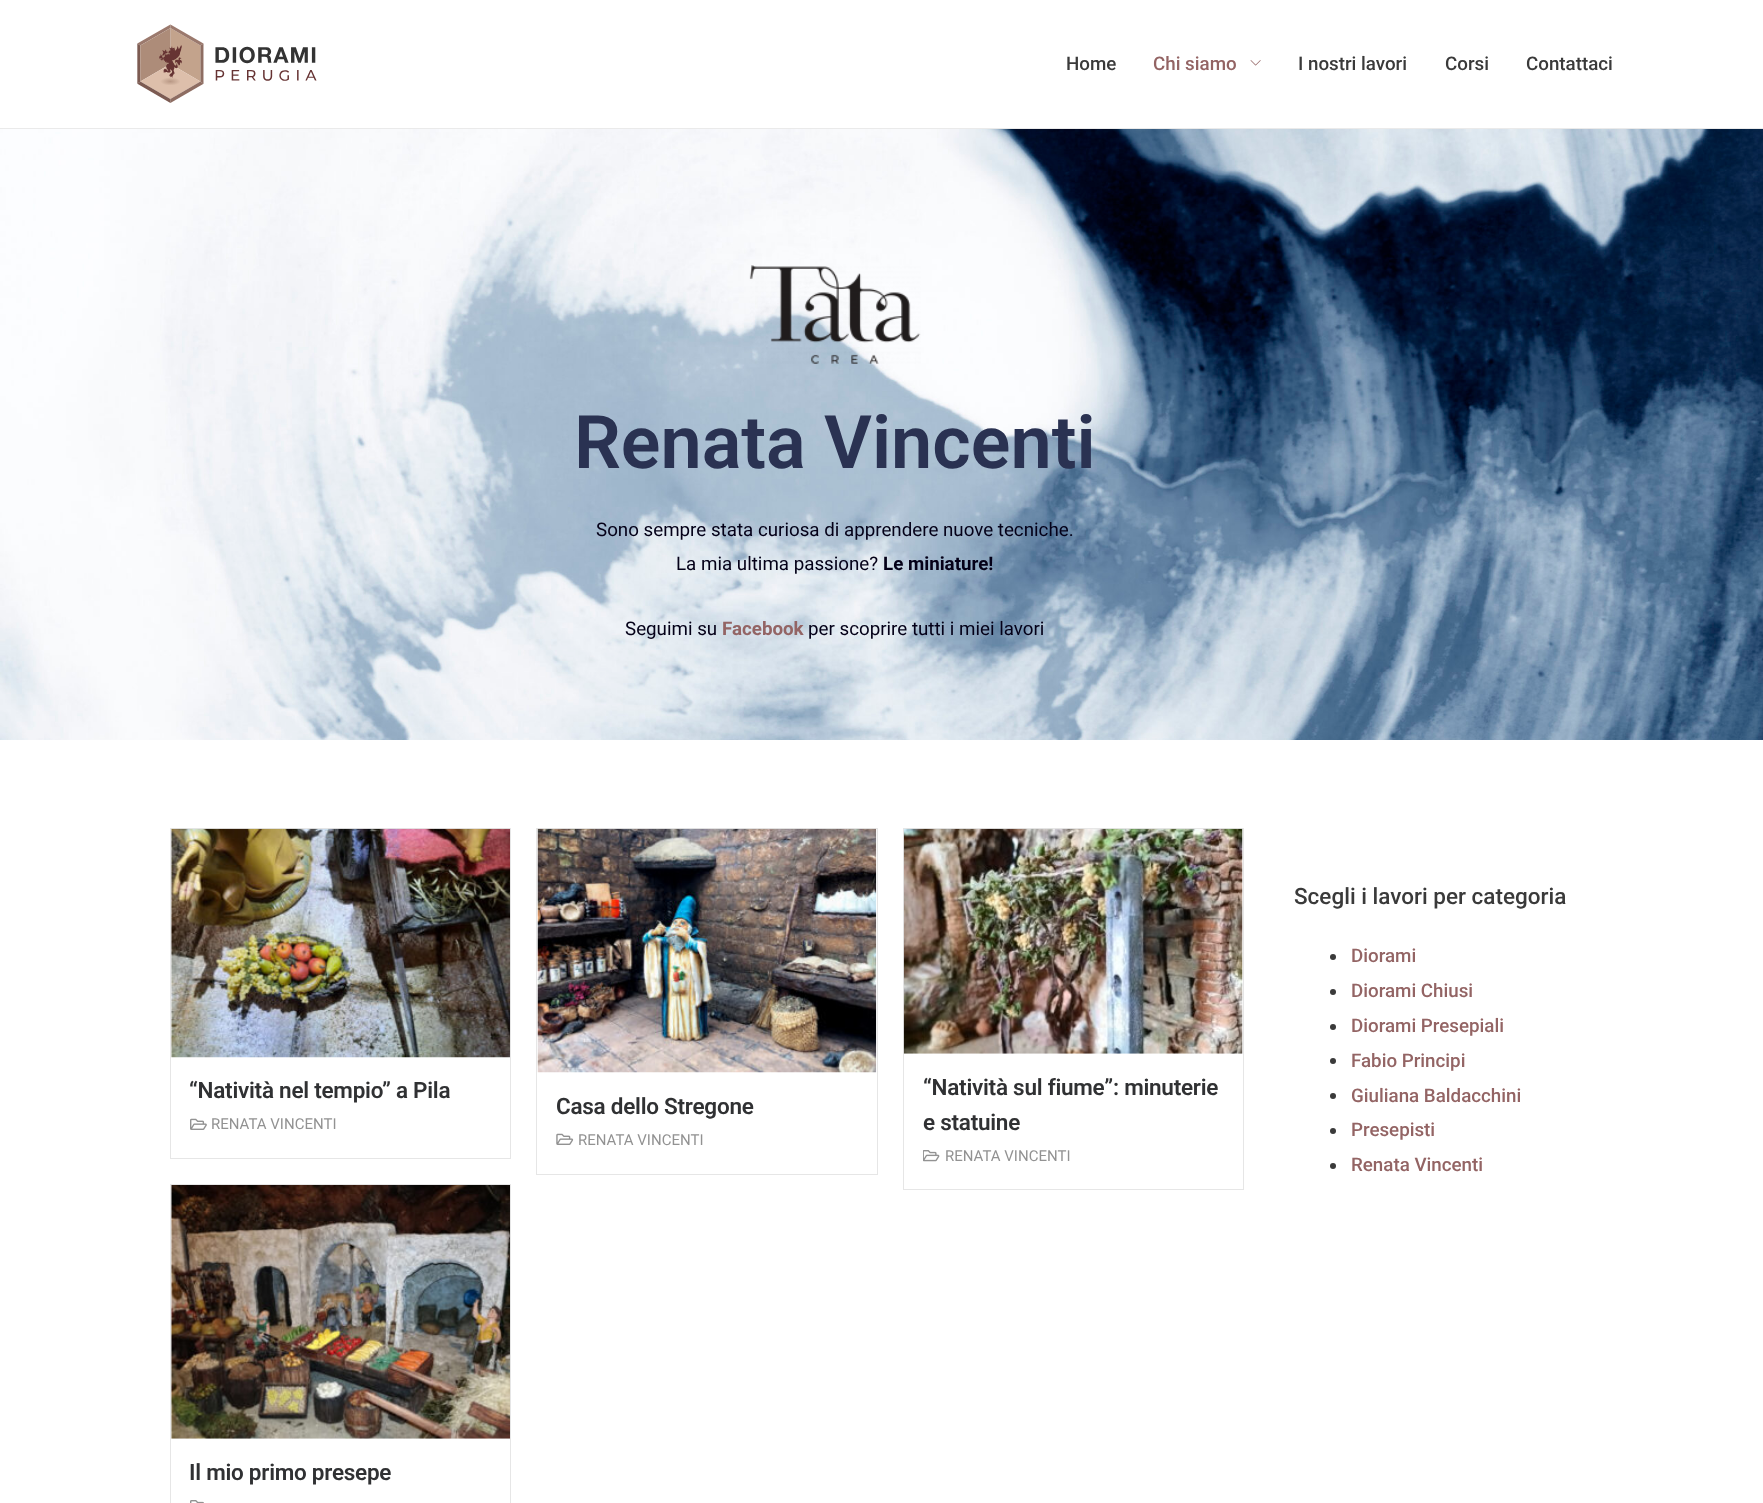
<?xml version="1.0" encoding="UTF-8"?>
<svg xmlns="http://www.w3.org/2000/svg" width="1763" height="1503">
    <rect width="100%" height="100%" fill="#FFFFFF"/>
    <rect x="0" y="128" width="1763" height="1" fill="#EAEAEA"/>
    <image x="137" y="24" width="180" height="79" href="img_01.png"/>
    <text x="1066" y="70" font-family="Roboto" font-size="18.75" font-weight="500" fill="#3A3A3A">Home</text>
    <text x="1153" y="70" font-family="Roboto" font-size="18.75" font-weight="500" fill="#936464">Chi siamo</text>
    <image x="1250" y="60" width="11" height="6" href="img_02.png"/>
    <text x="1298" y="70" font-family="Roboto" font-size="18.75" font-weight="500" fill="#3A3A3A">I nostri lavori</text>
    <text x="1445" y="70" font-family="Roboto" font-size="18.75" font-weight="500" fill="#3A3A3A">Corsi</text>
    <text x="1526" y="70" font-family="Roboto" font-size="18.75" font-weight="500" fill="#3A3A3A">Contattaci</text>
    <image x="0" y="129" width="1763" height="611" href="img_03.png"/>
    <image x="749" y="265" width="172" height="99" href="img_04.png"/>
    <text x="574" y="468" font-family="Roboto" font-size="73.75" font-weight="600" fill="#2A3252">Renata Vincenti</text>
    <text x="596" y="536" font-family="Roboto" font-size="18.75" fill="#040018">Sono sempre stata curiosa di apprendere nuove tecniche.</text>
    <text x="676" y="570" font-family="Roboto" font-size="18.75" fill="#040018">La mia ultima passione?</text>
    <text x="883" y="570" font-family="Roboto" font-size="18.75" font-weight="700" fill="#040018">Le miniature!</text>
    <text x="625" y="635" font-family="Roboto" font-size="18.75" fill="#040018">Seguimi su</text>
    <text x="722" y="635" font-family="Roboto" font-size="18.75" font-weight="700" fill="#936464">Facebook</text>
    <text x="808" y="635" font-family="Roboto" font-size="18.75" fill="#040018">per scoprire tutti i miei lavori</text>
    <text x="1294" y="904" font-family="Roboto" font-size="22.5" font-weight="500" fill="#3A3A3A">Scegli i lavori per categoria</text>
    <circle cx="1333" cy="957" r="3" fill="#3A3A3A"/>
    <text x="1351" y="962" font-family="Roboto" font-size="18.75" font-weight="500" fill="#936464">Diorami</text>
    <circle cx="1333" cy="992" r="3" fill="#3A3A3A"/>
    <text x="1351" y="997" font-family="Roboto" font-size="18.75" font-weight="500" fill="#936464">Diorami Chiusi</text>
    <circle cx="1333" cy="1027" r="3" fill="#3A3A3A"/>
    <text x="1351" y="1032" font-family="Roboto" font-size="18.75" font-weight="500" fill="#936464">Diorami Presepiali</text>
    <circle cx="1333" cy="1061" r="3" fill="#3A3A3A"/>
    <text x="1351" y="1067" font-family="Roboto" font-size="18.75" font-weight="500" fill="#936464">Fabio Principi</text>
    <circle cx="1333" cy="1096" r="3" fill="#3A3A3A"/>
    <text x="1351" y="1102" font-family="Roboto" font-size="18.75" font-weight="500" fill="#936464">Giuliana Baldacchini</text>
    <circle cx="1333" cy="1131" r="3" fill="#3A3A3A"/>
    <text x="1351" y="1136" font-family="Roboto" font-size="18.75" font-weight="500" fill="#936464">Presepisti</text>
    <circle cx="1333" cy="1166" r="3" fill="#3A3A3A"/>
    <text x="1351" y="1171" font-family="Roboto" font-size="18.75" font-weight="500" fill="#936464">Renata Vincenti</text>
    <rect x="170.5" y="828.5" width="340" height="330" fill="none" stroke="#E6E6E6"/>
    <image x="171" y="828" width="339" height="230" href="img_05.png"/>
    <text x="189" y="1098" font-family="Roboto" font-size="22.5" font-weight="600" letter-spacing="-0.25" fill="#303133">“Natività nel tempio” a Pila</text>
    <image x="190" y="1118" width="17" height="12" href="img_06.png"/>
    <text x="211" y="1129" font-family="Roboto" font-size="15" fill="#929292">RENATA VINCENTI</text>
    <rect x="536.5" y="828.5" width="341" height="346" fill="none" stroke="#E6E6E6"/>
    <image x="537" y="828" width="340" height="245" href="img_07.png"/>
    <text x="556" y="1114" font-family="Roboto" font-size="22.5" font-weight="600" letter-spacing="-0.25" fill="#303133">Casa dello Stregone</text>
    <image x="556" y="1133" width="18" height="12" href="img_08.png"/>
    <text x="578" y="1145" font-family="Roboto" font-size="15" fill="#929292">RENATA VINCENTI</text>
    <rect x="903.5" y="828.5" width="340" height="361" fill="none" stroke="#E6E6E6"/>
    <image x="903" y="828" width="340" height="226" href="img_09.png"/>
    <text font-family="Roboto" font-size="22.5" font-weight="600" letter-spacing="-0.25" fill="#303133">
        <tspan x="923" y="1095">“Natività sul fiume”: minuterie</tspan>
        <tspan x="923" y="1130">e statuine</tspan>
    </text>
    <image x="923" y="1150" width="17" height="12" href="img_10.png"/>
    <text x="945" y="1161" font-family="Roboto" font-size="15" fill="#929292">RENATA VINCENTI</text>
    <rect x="170.5" y="1184.5" width="340" height="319" fill="none" stroke="#E6E6E6"/>
    <image x="171" y="1185" width="339" height="254" href="img_11.png"/>
    <text x="189" y="1480" font-family="Roboto" font-size="22.5" font-weight="600" letter-spacing="-0.25" fill="#303133">Il mio primo presepe</text>
    <image x="190" y="1500" width="14" height="3" href="img_12.png"/>
</svg>
